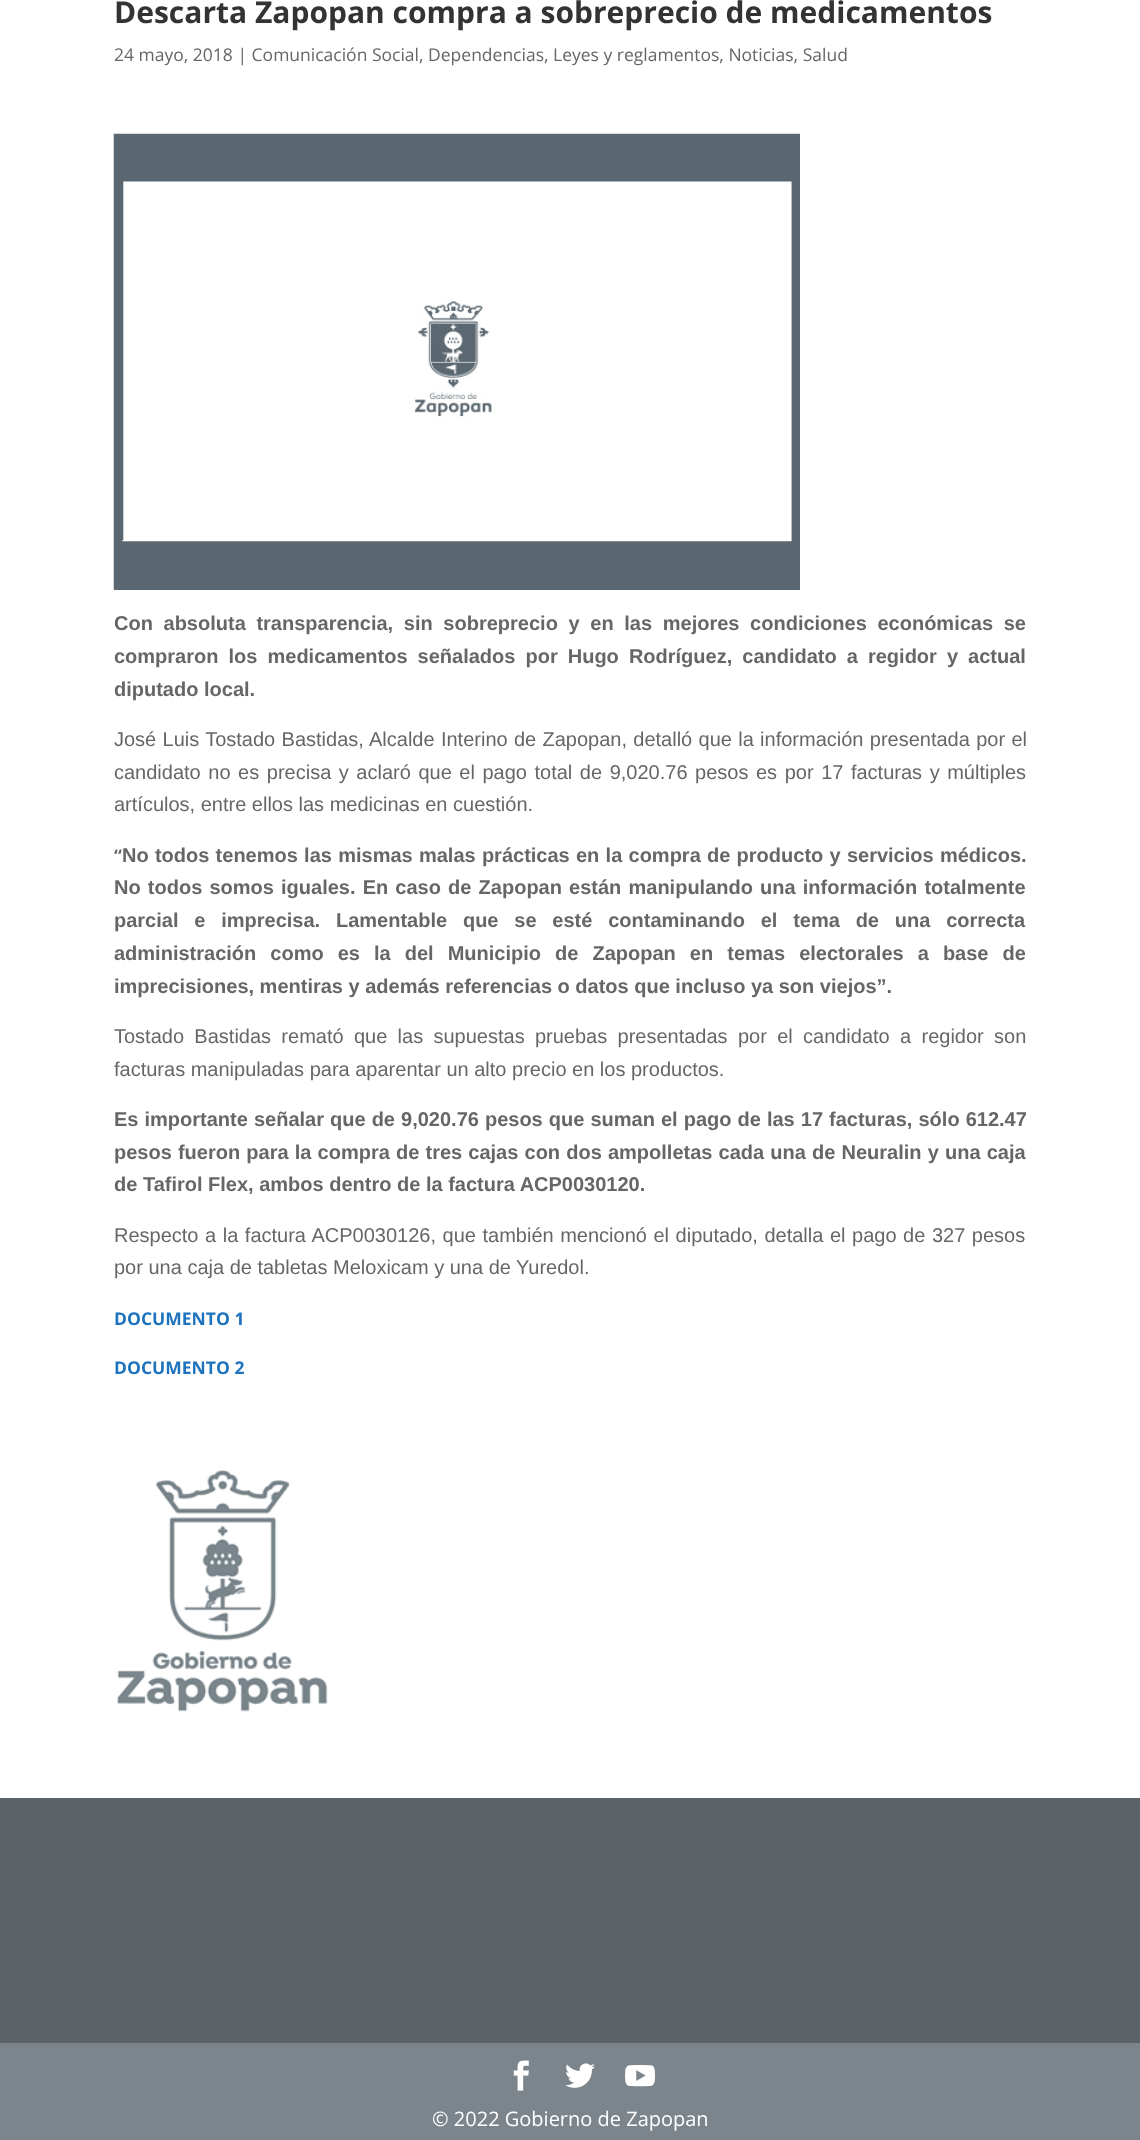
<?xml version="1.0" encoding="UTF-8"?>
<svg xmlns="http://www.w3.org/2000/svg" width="1140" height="2140">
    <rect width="100%" height="100%" fill="#FFFFFF"/>
    <text x="114" y="23" font-family="Open Sans" font-size="30" font-weight="700" fill="#333333">Descarta Zapopan compra a sobreprecio de medicamentos</text>
    <text x="114" y="61" font-family="Open Sans" font-size="17.5" fill="#666666">24 mayo, 2018 | Comunicación Social, Dependencias, Leyes y reglamentos, Noticias, Salud</text>
    <image x="113" y="133" width="687" height="457" href="img_01.png"/>
    <text font-family="Liberation Sans" font-size="20" font-weight="700" fill="#666666">
        <tspan x="114" y="630" word-spacing="5.1">Con absoluta transparencia, sin sobreprecio y en las mejores condiciones económicas se</tspan>
        <tspan x="114" y="663" word-spacing="4.5">compraron los medicamentos señalados por Hugo Rodríguez, candidato a regidor y actual</tspan>
        <tspan x="114" y="696">diputado local.</tspan>
    </text>
    <text font-family="Liberation Sans" font-size="20" fill="#666666">
        <tspan x="114" y="746" word-spacing="0.75">José Luis Tostado Bastidas, Alcalde Interino de Zapopan, detalló que la información presentada por el</tspan>
        <tspan x="114" y="779" word-spacing="2">candidato no es precisa y aclaró que el pago total de 9,020.76 pesos es por 17 facturas y múltiples</tspan>
        <tspan x="114" y="811">artículos, entre ellos las medicinas en cuestión.</tspan>
    </text>
    <text x="114" y="862" font-family="Open Sans" font-size="17.5" font-weight="700" fill="#666666">“</text>
    <text x="122" y="862" word-spacing="0.7" font-family="Liberation Sans" font-size="20" font-weight="700" fill="#666666">No todos tenemos las mismas malas prácticas en la compra de producto y servicios médicos.</text>
    <text font-family="Liberation Sans" font-size="20" font-weight="700" fill="#666666">
        <tspan x="114" y="894" word-spacing="1.6">No todos somos iguales. En caso de Zapopan están manipulando una información totalmente</tspan>
        <tspan x="114" y="927" word-spacing="10.25">parcial e imprecisa. Lamentable que se esté contaminando el tema de una correcta</tspan>
        <tspan x="114" y="960" word-spacing="8.5">administración como es la del Municipio de Zapopan en temas electorales a base de</tspan>
        <tspan x="114" y="993">imprecisiones, mentiras y además referencias o datos que incluso ya son viejos”.</tspan>
    </text>
    <text font-family="Liberation Sans" font-size="20" fill="#666666">
        <tspan x="114" y="1043" word-spacing="4.75">Tostado Bastidas remató que las supuestas pruebas presentadas por el candidato a regidor son</tspan>
        <tspan x="114" y="1076">facturas manipuladas para aparentar un alto precio en los productos.</tspan>
    </text>
    <text font-family="Liberation Sans" font-size="20" font-weight="700" fill="#666666">
        <tspan x="114" y="1126" word-spacing="0.5">Es importante señalar que de 9,020.76 pesos que suman el pago de las 17 facturas, sólo 612.47</tspan>
        <tspan x="114" y="1159" word-spacing="0.6">pesos fueron para la compra de tres cajas con dos ampolletas cada una de Neuralin y una caja</tspan>
        <tspan x="114" y="1191">de Tafirol Flex, ambos dentro de la factura ACP0030120.</tspan>
    </text>
    <text font-family="Liberation Sans" font-size="20" fill="#666666">
        <tspan x="114" y="1242" word-spacing="1">Respecto a la factura ACP0030126, que también mencionó el diputado, detalla el pago de 327 pesos</tspan>
        <tspan x="114" y="1274">por una caja de tabletas Meloxicam y una de Yuredol.</tspan>
    </text>
    <text x="114" y="1325" font-family="Open Sans" font-size="17.5" font-weight="700" fill="#1E73BE">DOCUMENTO 1</text>
    <text x="114" y="1374" font-family="Open Sans" font-size="17.5" font-weight="700" fill="#1E73BE">DOCUMENTO 2</text>
    <image x="117" y="1470" width="211" height="242" href="img_02.png"/>
    <rect x="0" y="1798" width="1140" height="245" fill="#5C6368"/>
    <rect x="0" y="2043" width="1140" height="97" fill="#7C858C"/>
    <image x="513" y="2060" width="16" height="31" href="img_03.png"/>
    <image x="565" y="2063" width="30" height="25" href="img_04.png"/>
    <image x="625" y="2065" width="30" height="22" href="img_05.png"/>
    <text x="432" y="2126" font-family="Open Sans" font-size="20" fill="#FFFFFF">© 2022 Gobierno de Zapopan</text>
</svg>
